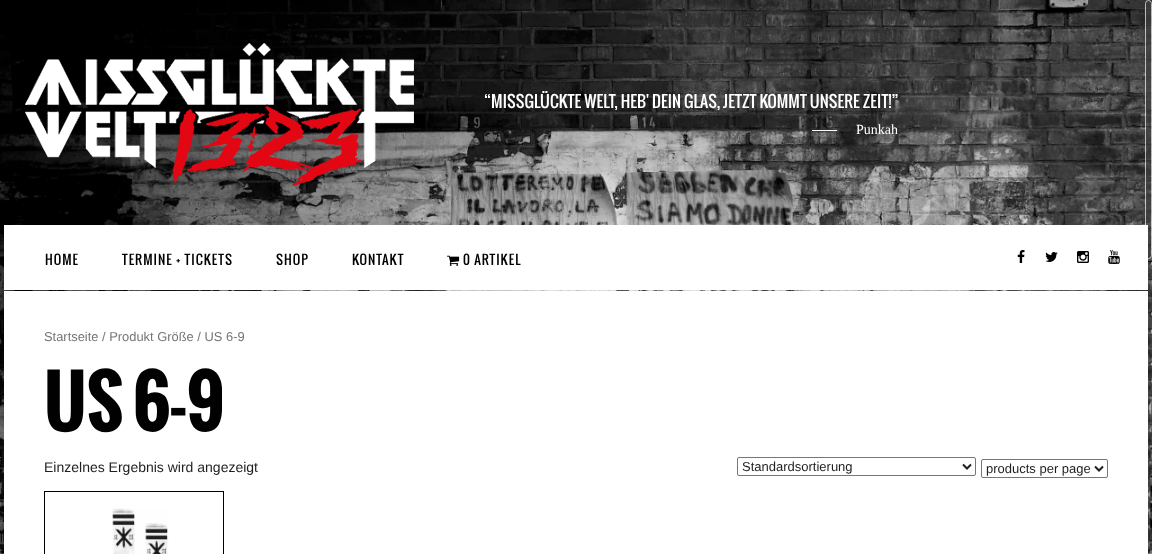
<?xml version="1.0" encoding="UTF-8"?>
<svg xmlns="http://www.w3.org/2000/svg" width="1152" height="554">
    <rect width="100%" height="100%" fill="#FFFFFF"/>
    <image x="0" y="0" width="1152" height="554" href="img_01.png"/>
    <image x="25" y="43" width="389" height="143" href="img_02.png"/>
    <text x="484" y="108" font-family="Oswald" font-size="16" letter-spacing="0.1" fill="#FFFFFF">“MISSGLÜCKTE WELT, HEB' DEIN GLAS, JETZT KOMMT UNSERE ZEIT!”</text>
    <rect x="812" y="130" width="25" height="1" fill="#FFFFFF"/>
    <text x="856" y="134" font-family="Liberation Serif" font-size="14" fill="#FFFFFF">Punkah</text>
    <rect x="1146" y="1" width="5" height="257" rx="2.5" fill="#424242" fill-opacity="0.67"/>
    <rect x="1145.5" y="0.5" width="6" height="258" rx="3" fill="none" stroke="#FFFFFF" stroke-opacity="0.67"/>
    <rect x="4" y="225" width="1144" height="65" fill="#FFFFFF"/>
    <text x="45" y="265" font-family="Oswald" font-size="13" letter-spacing="1" fill="#010101">HOME</text>
    <text x="122" y="265" font-family="Oswald" font-size="13" letter-spacing="1" fill="#010101">TERMINE + TICKETS</text>
    <text x="276" y="265" font-family="Oswald" font-size="13" letter-spacing="1" fill="#010101">SHOP</text>
    <text x="352" y="265" font-family="Oswald" font-size="13" letter-spacing="1" fill="#010101">KONTAKT</text>
    <image x="447" y="255" width="13" height="11" href="img_03.png"/>
    <text x="463" y="265" font-family="Oswald" font-size="13" letter-spacing="1" fill="#010101">0 ARTIKEL</text>
    <image x="1017" y="250" width="8" height="13" href="img_04.png"/>
    <image x="1045" y="252" width="13" height="10" href="img_05.png"/>
    <image x="1077" y="251" width="12" height="12" href="img_06.png"/>
    <image x="1108" y="250" width="12" height="14" href="img_07.png"/>
    <rect x="4" y="291" width="1144" height="263" fill="#FFFFFF"/>
    <text x="44" y="341" font-family="Liberation Sans" font-size="12.9" fill="#767676">Startseite / Produkt Größe / US 6-9</text>
    <text x="44" y="431" font-family="Oswald" font-size="70" font-weight="700" fill="#010101">US 6-9</text>
    <text x="44" y="472" font-family="Liberation Sans" font-size="14" fill="#1F1F1F">Einzelnes Ergebnis wird angezeigt</text>
    <rect x="737.5" y="457.5" width="238" height="18" rx="1.5" fill="none" stroke="#767676"/>
    <path d="M 963 464.5 L 967 468.5 L 971 464.5" fill="none" stroke="#1F1F1F" stroke-width="2"/>
    <text x="742" y="471" font-family="Liberation Sans" font-size="13" fill="#1F1F1F">Standardsortierung</text>
    <rect x="981.5" y="459.5" width="126" height="18" rx="1.5" fill="none" stroke="#767676"/>
    <path d="M 1095 466.5 L 1099 470.5 L 1103 466.5" fill="none" stroke="#1F1F1F" stroke-width="2"/>
    <text x="986" y="473" font-family="Liberation Sans" font-size="13" fill="#1F1F1F">products per page</text>
    <rect x="44.5" y="491.5" width="179" height="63" fill="none" stroke="#000000"/>
    <image x="112" y="508" width="57" height="46" href="img_08.png"/>
</svg>
